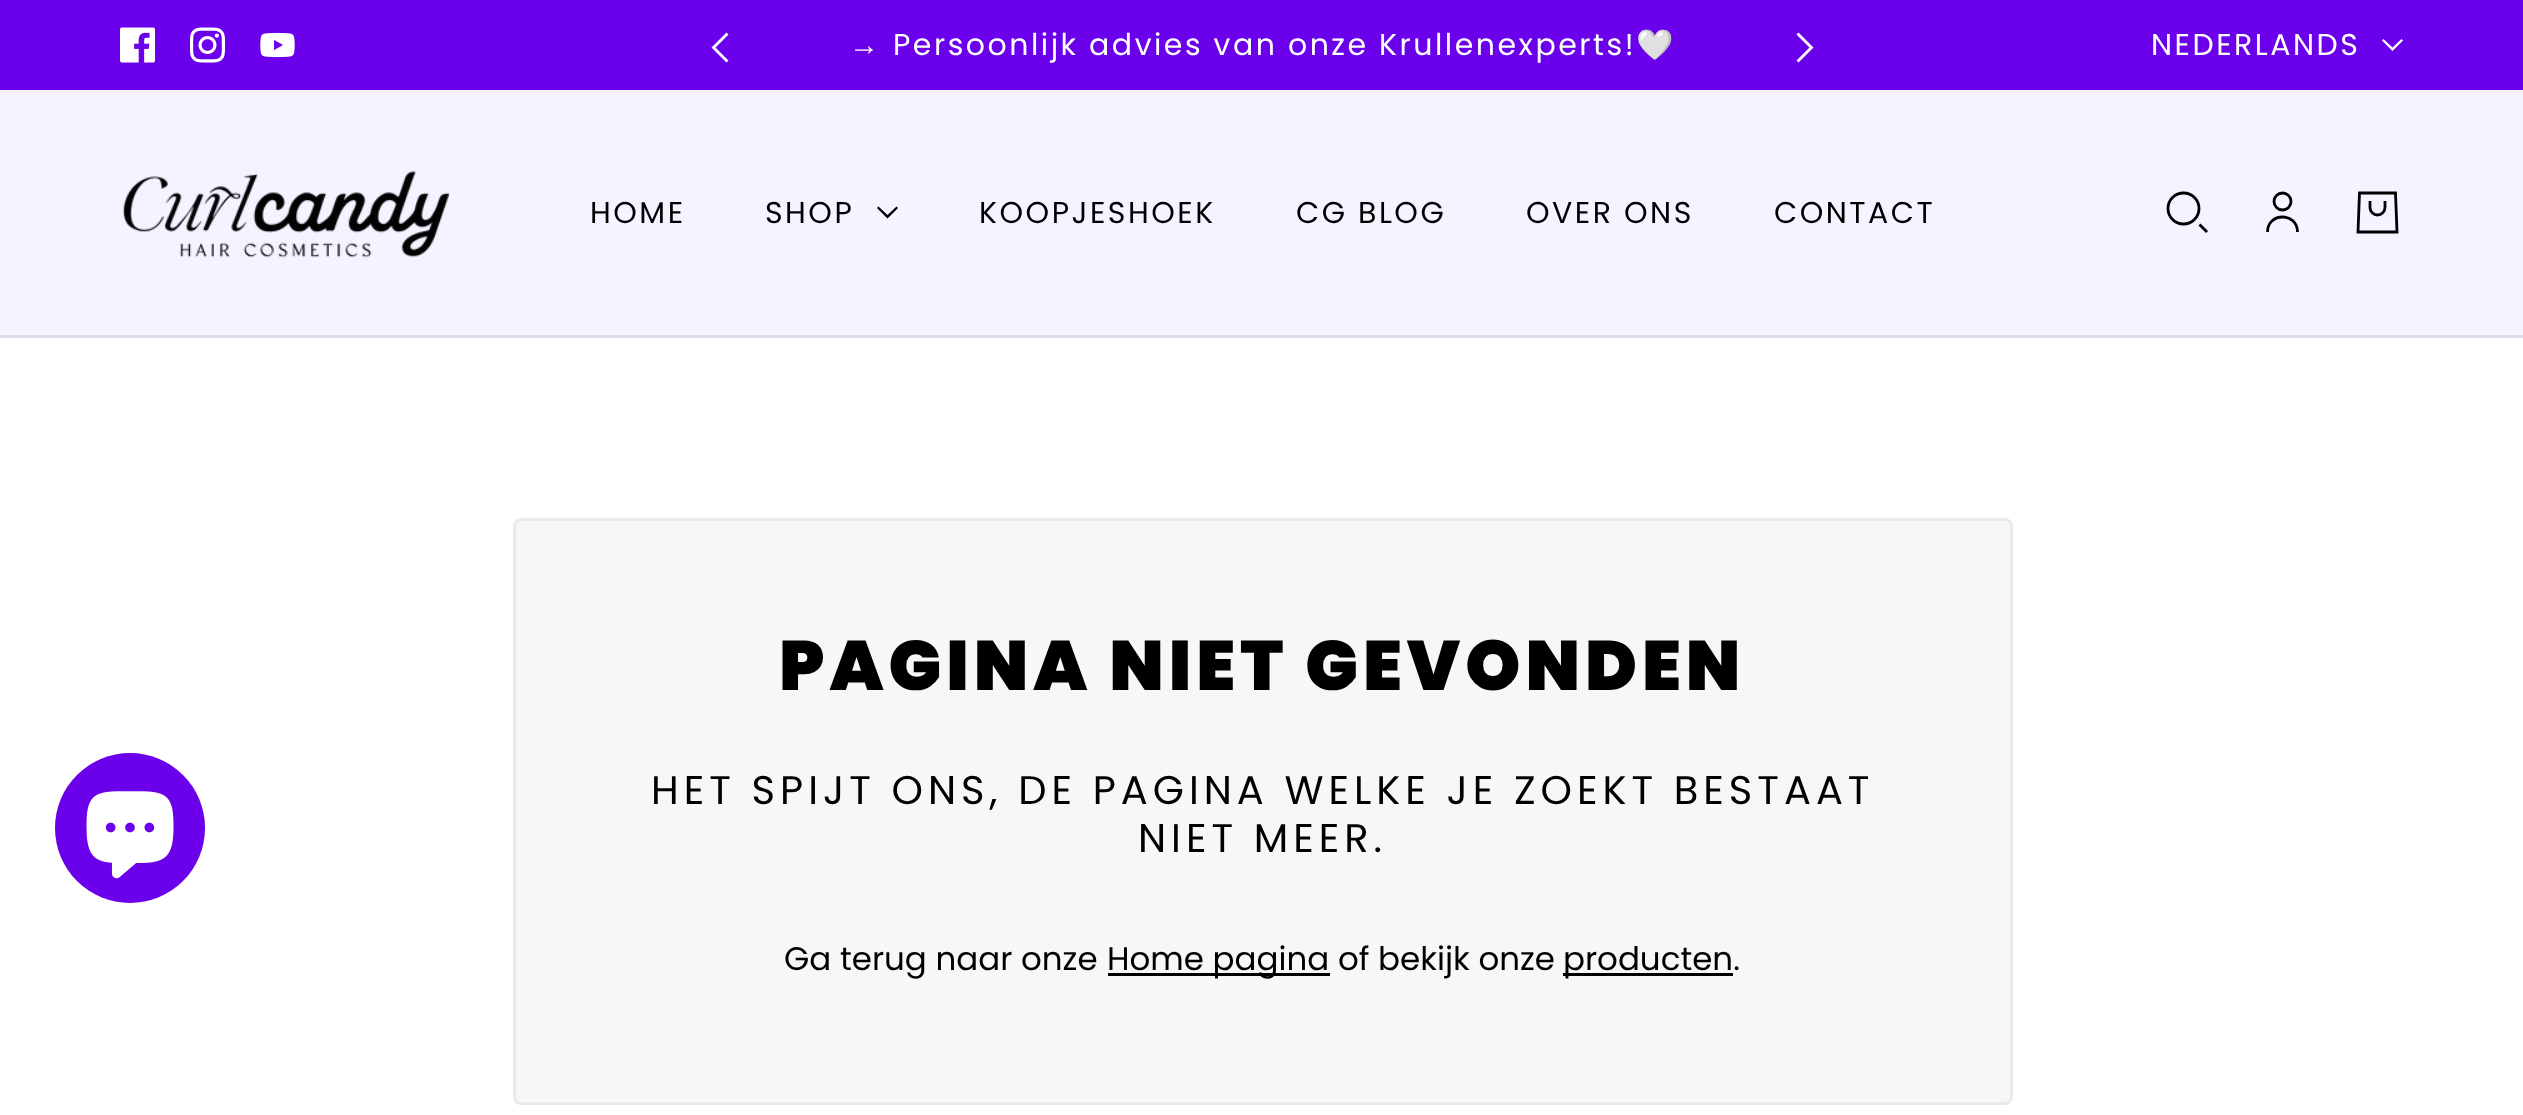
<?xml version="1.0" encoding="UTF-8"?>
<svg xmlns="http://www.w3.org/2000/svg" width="2523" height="1115">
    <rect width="100%" height="100%" fill="#FFFFFF"/>
    <circle cx="130" cy="828" r="75" fill="#6B00EB"/>
    <image x="86" y="791" width="88" height="88" href="img_01.png"/>
    <rect x="0" y="0" width="2523" height="90" fill="#6B00EB"/>
    <image x="120" y="27" width="35" height="36" href="img_02.png"/>
    <image x="190" y="27" width="35" height="36" href="img_03.png"/>
    <image x="260" y="32" width="35" height="26" href="img_04.png"/>
    <path d="M 715.5 47.5 L 728.5 60.5 L 726.5 62.5 L 711.5 47.5 L 726.5 32.5 L 728.5 34.5 Z" fill="#FFFFFF"/>
    <text x="849" y="55" font-family="Liberation Sans" font-size="30" letter-spacing="2.5" fill="#FFFFFF">→</text>
    <text x="893" y="55" font-family="Poppins" font-size="30" letter-spacing="2.5" fill="#FFFFFF">Persoonlijk advies van onze Krullenexperts!</text>
    <text x="1636" y="55" font-family="Noto Color Emoji" font-size="30" letter-spacing="2.5" fill="#FFFFFF">🤍</text>
    <path d="M 1809.5 47.5 L 1796.5 34.5 L 1798.5 32.5 L 1813.5 47.5 L 1798.5 62.5 L 1796.5 60.5 Z" fill="#FFFFFF"/>
    <text x="2151" y="55" font-family="Poppins" font-size="30" letter-spacing="2.5" fill="#FFFFFF">NEDERLANDS</text>
    <path d="M 2392.5 47.5 L 2401.5 39 L 2403 40.5 L 2392.5 51 L 2382 40.5 L 2383.5 39 Z" fill="#FFFFFF"/>
    <rect x="0" y="90" width="2523" height="245" fill="#F5F3FF"/>
    <image x="123" y="171" width="327" height="87" href="img_05.png"/>
    <text x="590" y="223" font-family="Poppins" font-size="30" letter-spacing="2.5" fill="#000000">HOME</text>
    <text x="765" y="223" font-family="Poppins" font-size="30" letter-spacing="2.5" fill="#000000">SHOP</text>
    <path d="M 887.5 215 L 896.5 206.5 L 898 208 L 887.5 218.5 L 877 208 L 878.5 206.5 Z" fill="#000000"/>
    <text x="979" y="223" font-family="Poppins" font-size="30" letter-spacing="2.5" fill="#000000">KOOPJESHOEK</text>
    <text x="1296" y="223" font-family="Poppins" font-size="30" letter-spacing="2.5" fill="#000000">CG BLOG</text>
    <text x="1526" y="223" font-family="Poppins" font-size="30" letter-spacing="2.5" fill="#000000">OVER ONS</text>
    <text x="1774" y="223" font-family="Poppins" font-size="30" letter-spacing="2.5" fill="#000000">CONTACT</text>
    <circle cx="2183.5" cy="208.5" r="15.5" fill="none" stroke="#000000" stroke-width="2.8"/>
    <path d="M 2199.5 224.5 L 2207 232" fill="none" stroke="#000000" stroke-width="2.8"/>
    <circle cx="2282.5" cy="201.5" r="8.5" fill="none" stroke="#000000" stroke-width="2.8"/>
    <path d="M 2267.5 232 C 2267.5 212 2297.5 212 2297.5 232" fill="none" stroke="#000000" stroke-width="2.8"/>
    <path d="M 2397 232 H 2358 L 2359.5 193 H 2395.5 Z M 2370 201 V 207.5 C 2370 211.5 2373.5 215 2377.5 215 C 2381.5 215 2385 211.5 2385 207.5 V 201" fill="none" stroke="#000000" stroke-width="2.8"/>
    <rect x="0" y="335" width="2523" height="3" fill="#DDDBE6"/>
    <rect x="514.5" y="519.5" width="1497" height="584" rx="6.5" fill="#F7F7F7" stroke="#EAEAEA" stroke-width="3"/>
    <text x="779" y="690" font-family="Poppins" font-size="70" font-weight="900" letter-spacing="5" fill="#000000">PAGINA NIET GEVONDEN</text>
    <text x="651" y="804" font-family="Poppins" font-size="40" letter-spacing="5" fill="#000000">HET SPIJT ONS, DE PAGINA WELKE JE ZOEKT BESTAAT</text>
    <text x="1138" y="852" font-family="Poppins" font-size="40" letter-spacing="5" fill="#000000">NIET MEER.</text>
    <text x="784" y="970" font-family="Poppins" font-size="32.5" fill="#000000">Ga terug naar onze</text>
    <rect x="1108" y="973" width="222" height="3" fill="#000000"/>
    <text x="1107" y="970" font-family="Poppins" font-size="32.5" fill="#000000">Home pagina of bekijk onze</text>
    <rect x="1563" y="973" width="170" height="3" fill="#000000"/>
    <text x="1563" y="970" font-family="Poppins" font-size="32.5" fill="#000000">producten.</text>
</svg>
